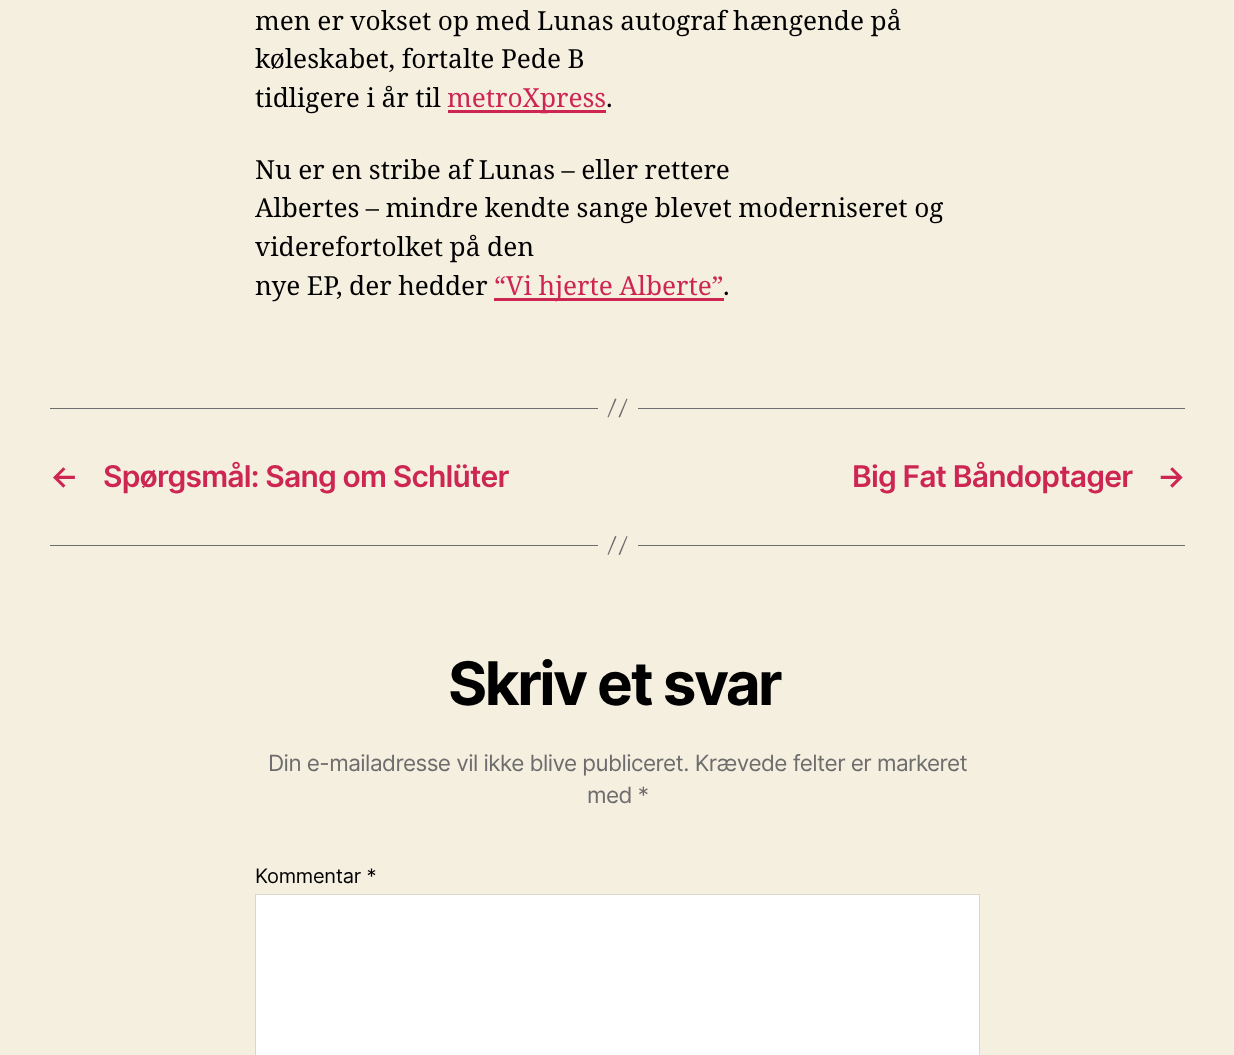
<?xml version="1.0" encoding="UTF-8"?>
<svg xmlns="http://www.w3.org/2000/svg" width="1234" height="1055">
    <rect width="100%" height="100%" fill="#F5EFE0"/>
    <text font-family="Noto Serif" font-size="26.25" fill="#000000">
        <tspan x="255" y="30" word-spacing="-0.25">men er vokset op med Lunas autograf hængende på</tspan>
        <tspan x="255" y="68" word-spacing="-0.25">køleskabet, fortalte Pede B</tspan>
        <tspan x="255" y="107" word-spacing="-0.25">tidligere i år til</tspan>
    </text>
    <rect x="448" y="110" width="158" height="3" fill="#CD2653"/>
    <text x="447" y="107" font-family="Noto Serif" font-size="26.25" fill="#CD2653">metroXpress</text>
    <text x="606" y="107" font-family="Noto Serif" font-size="26.25" fill="#000000">.</text>
    <text font-family="Noto Serif" font-size="26.25" fill="#000000">
        <tspan x="255" y="179" word-spacing="-0.25">Nu er en stribe af Lunas – eller rettere</tspan>
        <tspan x="255" y="217" word-spacing="-0.25">Albertes – mindre kendte sange blevet moderniseret og</tspan>
        <tspan x="255" y="256" word-spacing="-0.25">viderefortolket på den</tspan>
        <tspan x="255" y="295" word-spacing="-0.25">nye EP, der hedder</tspan>
    </text>
    <rect x="494" y="298" width="230" height="3" fill="#CD2653"/>
    <text x="494" y="295" word-spacing="-0.25" font-family="Noto Serif" font-size="26.25" fill="#CD2653">“Vi hjerte Alberte”</text>
    <text x="723" y="295" font-family="Noto Serif" font-size="26.25" fill="#000000">.</text>
    <rect x="638" y="408" width="547" height="1" fill="#6D6D6D"/>
    <rect x="50" y="408" width="548" height="1" fill="#6D6D6D"/>
    <path d="M 615 398.5 L 616.5 399 L 608.5 417.5 L 607.5 417 Z M 626.5 398.5 L 627.5 399 L 620 417.5 L 618.5 417 Z" fill="#6D6D6D"/>
    <text x="50" y="487" font-family="Inter" font-size="30" font-weight="600" letter-spacing="-0.8" fill="#CD2653">←</text>
    <text x="103" y="487" font-family="Inter" font-size="30" font-weight="600" letter-spacing="-0.8" fill="#CD2653">Spørgsmål: Sang om Schlüter</text>
    <text x="852" y="487" font-family="Inter" font-size="30" font-weight="600" letter-spacing="-0.8" fill="#CD2653">Big Fat Båndoptager</text>
    <text x="1157" y="487" font-family="Inter" font-size="30" font-weight="600" letter-spacing="-0.8" fill="#CD2653">→</text>
    <rect x="638" y="545" width="547" height="1" fill="#6D6D6D"/>
    <rect x="50" y="545" width="548" height="1" fill="#6D6D6D"/>
    <path d="M 615 536 L 616.5 536.5 L 608.5 555 L 607.5 554.5 Z M 626.5 536 L 627.5 536.5 L 620 555 L 618.5 554.5 Z" fill="#6D6D6D"/>
    <text x="448" y="705" font-family="Inter" font-size="60" font-weight="700" letter-spacing="-2.5" fill="#000000">Skriv et svar</text>
    <text x="268" y="771" font-family="Inter" font-size="22.5" letter-spacing="-0.55" fill="#6D6D6D">Din e-mailadresse vil ikke blive publiceret. Krævede felter er markeret</text>
    <text x="587" y="803" font-family="Inter" font-size="22.5" letter-spacing="-0.55" fill="#6D6D6D">med *</text>
    <text x="255" y="883" font-family="Inter" font-size="20" letter-spacing="-0.25" fill="#000000">Kommentar *</text>
    <rect x="255.5" y="894.5" width="724" height="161" fill="#FFFFFF" stroke="#DCD7CA"/>
</svg>
